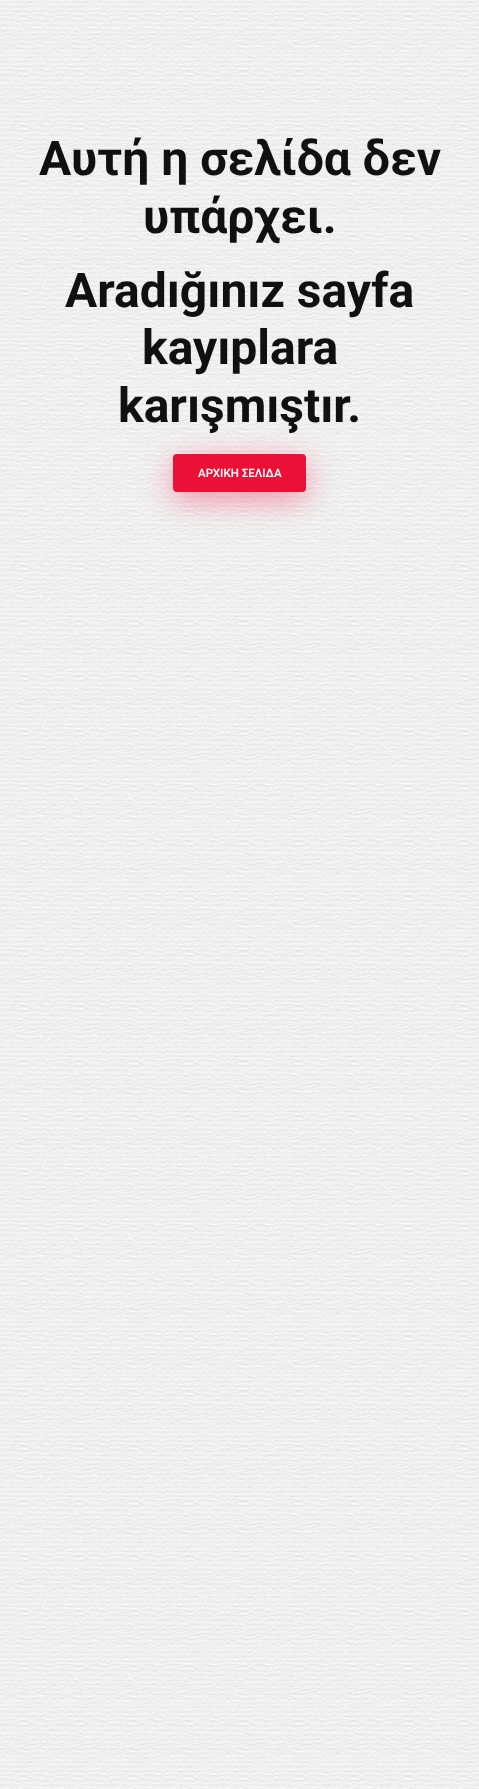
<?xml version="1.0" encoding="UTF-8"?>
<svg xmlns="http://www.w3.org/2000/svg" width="479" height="1789">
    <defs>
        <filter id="blur1" x="-50%" y="-200%" width="200%" height="500%"><feGaussianBlur stdDeviation="16"/></filter>
    </defs>
    <rect width="100%" height="100%" fill="#FFFFFF"/>
    <image x="0" y="0" width="479" height="1789" href="img_01.png"/>
    <text x="39" y="175" font-family="Roboto" font-size="48" font-weight="700" fill="#101011">Αυτή η σελίδα δεν</text>
    <text x="143" y="233" font-family="Roboto" font-size="48" font-weight="700" fill="#101011">υπάρχει.</text>
    <text x="65" y="307" font-family="Roboto" font-size="48" font-weight="700" fill="#101011">Aradığınız sayfa</text>
    <text x="142" y="364" font-family="Roboto" font-size="48" font-weight="700" fill="#101011">kayıplara</text>
    <text x="118" y="422" font-family="Roboto" font-size="48" font-weight="700" fill="#101011">karışmıştır.</text>
    <rect x="173" y="462" width="133" height="38" rx="4" fill="#EC1037" fill-opacity="0.4" filter="url(#blur1)"/>
    <rect x="173" y="454" width="133" height="38" rx="4" fill="#EC1037"/>
    <text x="198" y="477" font-family="Roboto" font-size="11.5" font-weight="600" fill="#FFFFFF">ΑΡΧΙΚΗ ΣΕΛΙΔΑ</text>
</svg>
